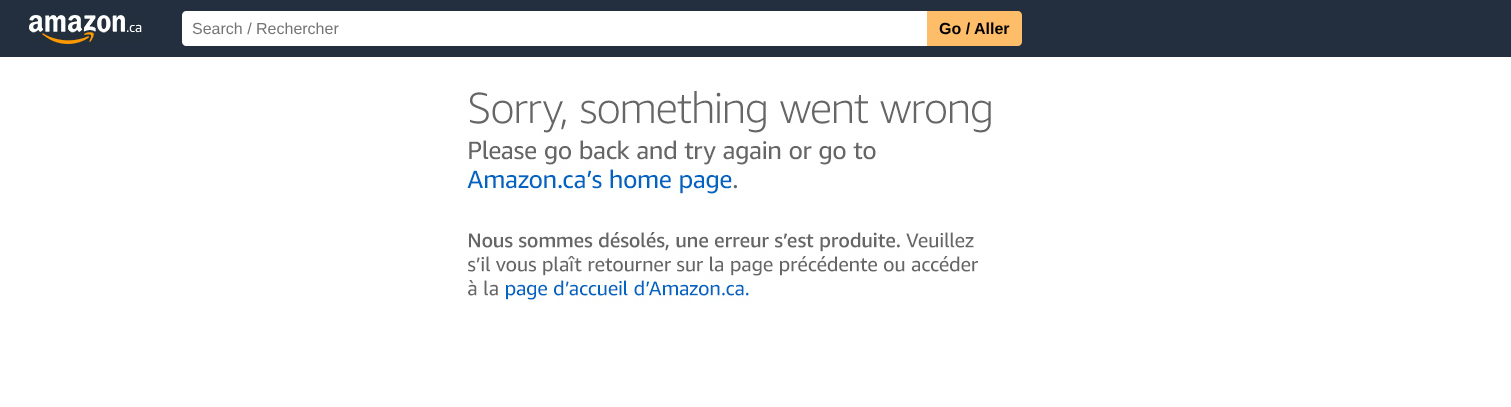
<?xml version="1.0" encoding="UTF-8"?>
<svg xmlns="http://www.w3.org/2000/svg" width="1511" height="407">
    <rect width="100%" height="100%" fill="#FFFFFF"/>
    <rect x="0" y="0" width="1511" height="57" fill="#232F3E"/>
    <image x="29" y="15" width="113" height="29" href="img_01.png"/>
    <path d="M 186 11 H 1002 V 46 H 186 C 184 46 182 44 182 42 V 15 C 182 13 184 11 186 11 Z" fill="#FFFFFF"/>
    <text x="192" y="34" font-family="Liberation Sans" font-size="16" fill="#757575">Search / Rechercher</text>
    <path d="M 927 11 H 1018 C 1020 11 1022 13 1022 15 V 42 C 1022 44 1020 46 1018 46 H 927 Z" fill="#FEBD69"/>
    <text x="939" y="34" font-family="Liberation Sans" font-size="16" font-weight="700" fill="#000000">Go / Aller</text>
    <image x="466" y="91" width="527" height="211" href="img_02.png"/>
</svg>
